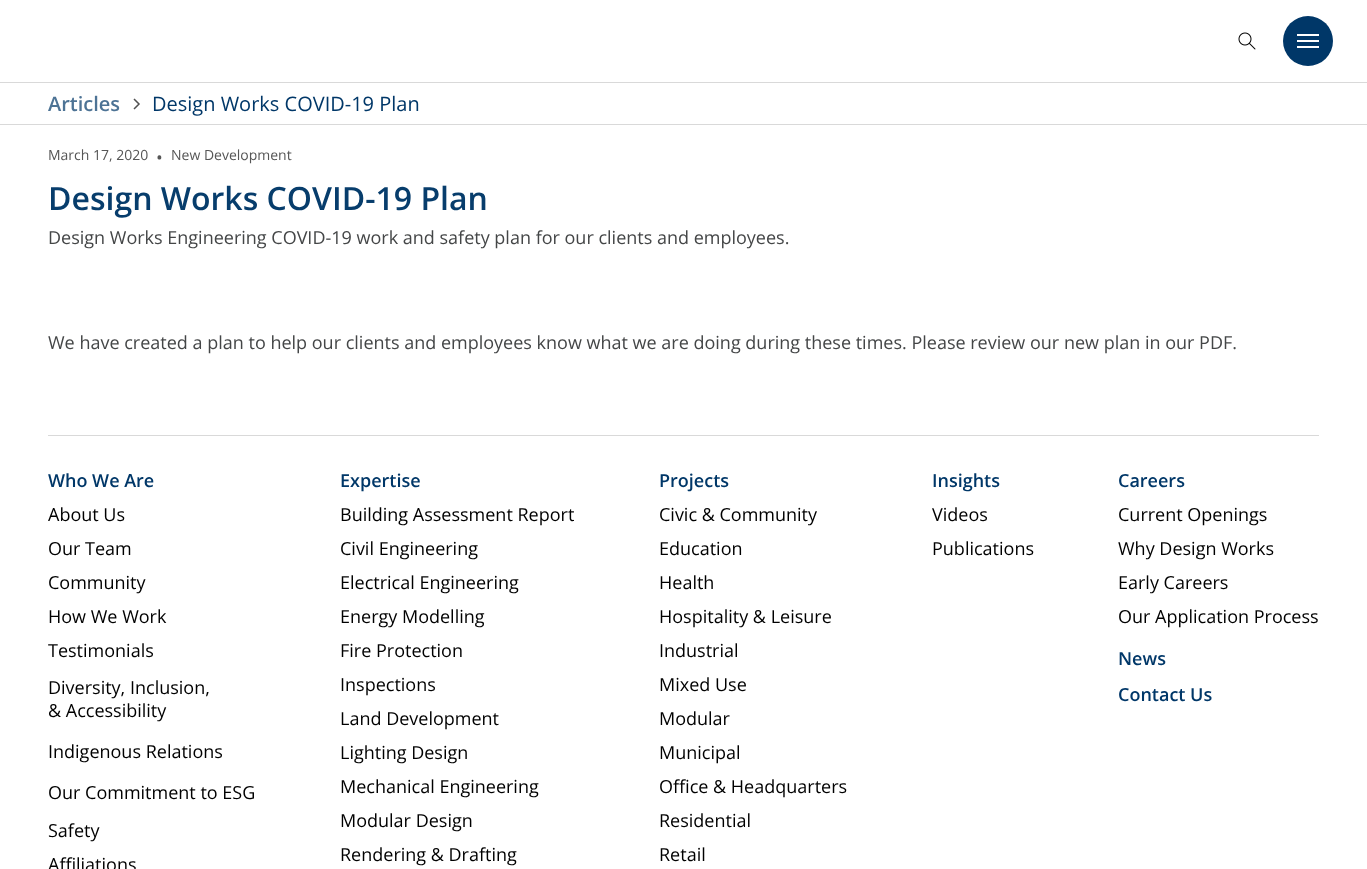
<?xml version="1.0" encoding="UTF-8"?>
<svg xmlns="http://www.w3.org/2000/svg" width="1367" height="869">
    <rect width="100%" height="100%" fill="#FFFFFF"/>
    <image x="1238" y="32" width="18" height="18" href="img_01.png"/>
    <circle cx="1308" cy="41" r="25" fill="#003768"/>
    <rect x="1297" y="34" width="22" height="2" fill="#FFFFFF"/>
    <rect x="1297" y="40" width="22" height="2" fill="#FFFFFF"/>
    <rect x="1297" y="46" width="22" height="2" fill="#FFFFFF"/>
    <rect x="0" y="82" width="1367" height="1" fill="#D9D9D9"/>
    <rect x="0" y="124" width="1367" height="1" fill="#D9D9D9"/>
    <text x="48" y="111" font-family="Open Sans" font-size="20" font-weight="600" fill="#4D7395">Articles</text>
    <path d="M 134 99 L 139 104 L 134 109" fill="none" stroke="#515151" stroke-width="1.5"/>
    <text x="152" y="111" font-family="Open Sans" font-size="20" fill="#003768">Design Works COVID-19 Plan</text>
    <text x="48" y="160" font-family="Open Sans" font-size="14" fill="#565656">March 17, 2020</text>
    <text x="156" y="164" font-family="Open Sans" font-size="18" fill="#565656">•</text>
    <text x="171" y="160" font-family="Open Sans" font-size="14" fill="#565656">New Development</text>
    <text x="48" y="210" font-family="Open Sans" font-size="32" font-weight="600" fill="#073D6C">Design Works COVID-19 Plan</text>
    <text x="48" y="244" font-family="Open Sans" font-size="18" fill="#444647">Design Works Engineering COVID-19 work and safety plan for our clients and employees.</text>
    <text x="48" y="349" font-family="Open Sans" font-size="18" fill="#444647">We have created a plan to help our clients and employees know what we are doing during these times. Please review our new plan in our PDF.</text>
    <rect x="48" y="435" width="1271" height="1" fill="#D9D9D9"/>
    <text x="48" y="487" font-family="Open Sans" font-size="18" font-weight="600" fill="#003768">Who We Are</text>
    <text font-family="Open Sans" font-size="18" fill="#000000">
        <tspan x="48" y="521">About Us</tspan>
        <tspan x="48" y="555">Our Team</tspan>
        <tspan x="48" y="589">Community</tspan>
        <tspan x="48" y="623">How We Work</tspan>
        <tspan x="48" y="657">Testimonials</tspan>
    </text>
    <text font-family="Open Sans" font-size="18" fill="#000000">
        <tspan x="48" y="694">Diversity, Inclusion,</tspan>
        <tspan x="48" y="717">&amp; Accessibility</tspan>
    </text>
    <text x="48" y="758" font-family="Open Sans" font-size="18" fill="#000000">Indigenous Relations</text>
    <text x="48" y="799" font-family="Open Sans" font-size="18" fill="#000000">Our Commitment to ESG</text>
    <text font-family="Open Sans" font-size="18" fill="#000000">
        <tspan x="48" y="837">Safety</tspan>
        <tspan x="48" y="871">Affiliations</tspan>
    </text>
    <text x="340" y="487" font-family="Open Sans" font-size="18" font-weight="600" fill="#003768">Expertise</text>
    <text font-family="Open Sans" font-size="18" fill="#000000">
        <tspan x="340" y="521">Building Assessment Report</tspan>
        <tspan x="340" y="555">Civil Engineering</tspan>
        <tspan x="340" y="589">Electrical Engineering</tspan>
        <tspan x="340" y="623">Energy Modelling</tspan>
        <tspan x="340" y="657">Fire Protection</tspan>
        <tspan x="340" y="691">Inspections</tspan>
        <tspan x="340" y="725">Land Development</tspan>
        <tspan x="340" y="759">Lighting Design</tspan>
        <tspan x="340" y="793">Mechanical Engineering</tspan>
        <tspan x="340" y="827">Modular Design</tspan>
        <tspan x="340" y="861">Rendering &amp; Drafting</tspan>
    </text>
    <text x="659" y="487" font-family="Open Sans" font-size="18" font-weight="600" fill="#003768">Projects</text>
    <text font-family="Open Sans" font-size="18" fill="#000000">
        <tspan x="659" y="521">Civic &amp; Community</tspan>
        <tspan x="659" y="555">Education</tspan>
        <tspan x="659" y="589">Health</tspan>
        <tspan x="659" y="623">Hospitality &amp; Leisure</tspan>
        <tspan x="659" y="657">Industrial</tspan>
        <tspan x="659" y="691">Mixed Use</tspan>
        <tspan x="659" y="725">Modular</tspan>
        <tspan x="659" y="759">Municipal</tspan>
        <tspan x="659" y="793">Office &amp; Headquarters</tspan>
        <tspan x="659" y="827">Residential</tspan>
        <tspan x="659" y="861">Retail</tspan>
    </text>
    <text x="932" y="487" font-family="Open Sans" font-size="18" font-weight="600" fill="#003768">Insights</text>
    <text font-family="Open Sans" font-size="18" fill="#000000">
        <tspan x="932" y="521">Videos</tspan>
        <tspan x="932" y="555">Publications</tspan>
    </text>
    <text x="1118" y="487" font-family="Open Sans" font-size="18" font-weight="600" fill="#003768">Careers</text>
    <text font-family="Open Sans" font-size="18" fill="#000000">
        <tspan x="1118" y="521">Current Openings</tspan>
        <tspan x="1118" y="555">Why Design Works</tspan>
        <tspan x="1118" y="589">Early Careers</tspan>
        <tspan x="1118" y="623">Our Application Process</tspan>
    </text>
    <text x="1118" y="665" font-family="Open Sans" font-size="18" font-weight="600" fill="#003768">News</text>
    <text x="1118" y="701" font-family="Open Sans" font-size="18" font-weight="600" fill="#003768">Contact Us</text>
</svg>
